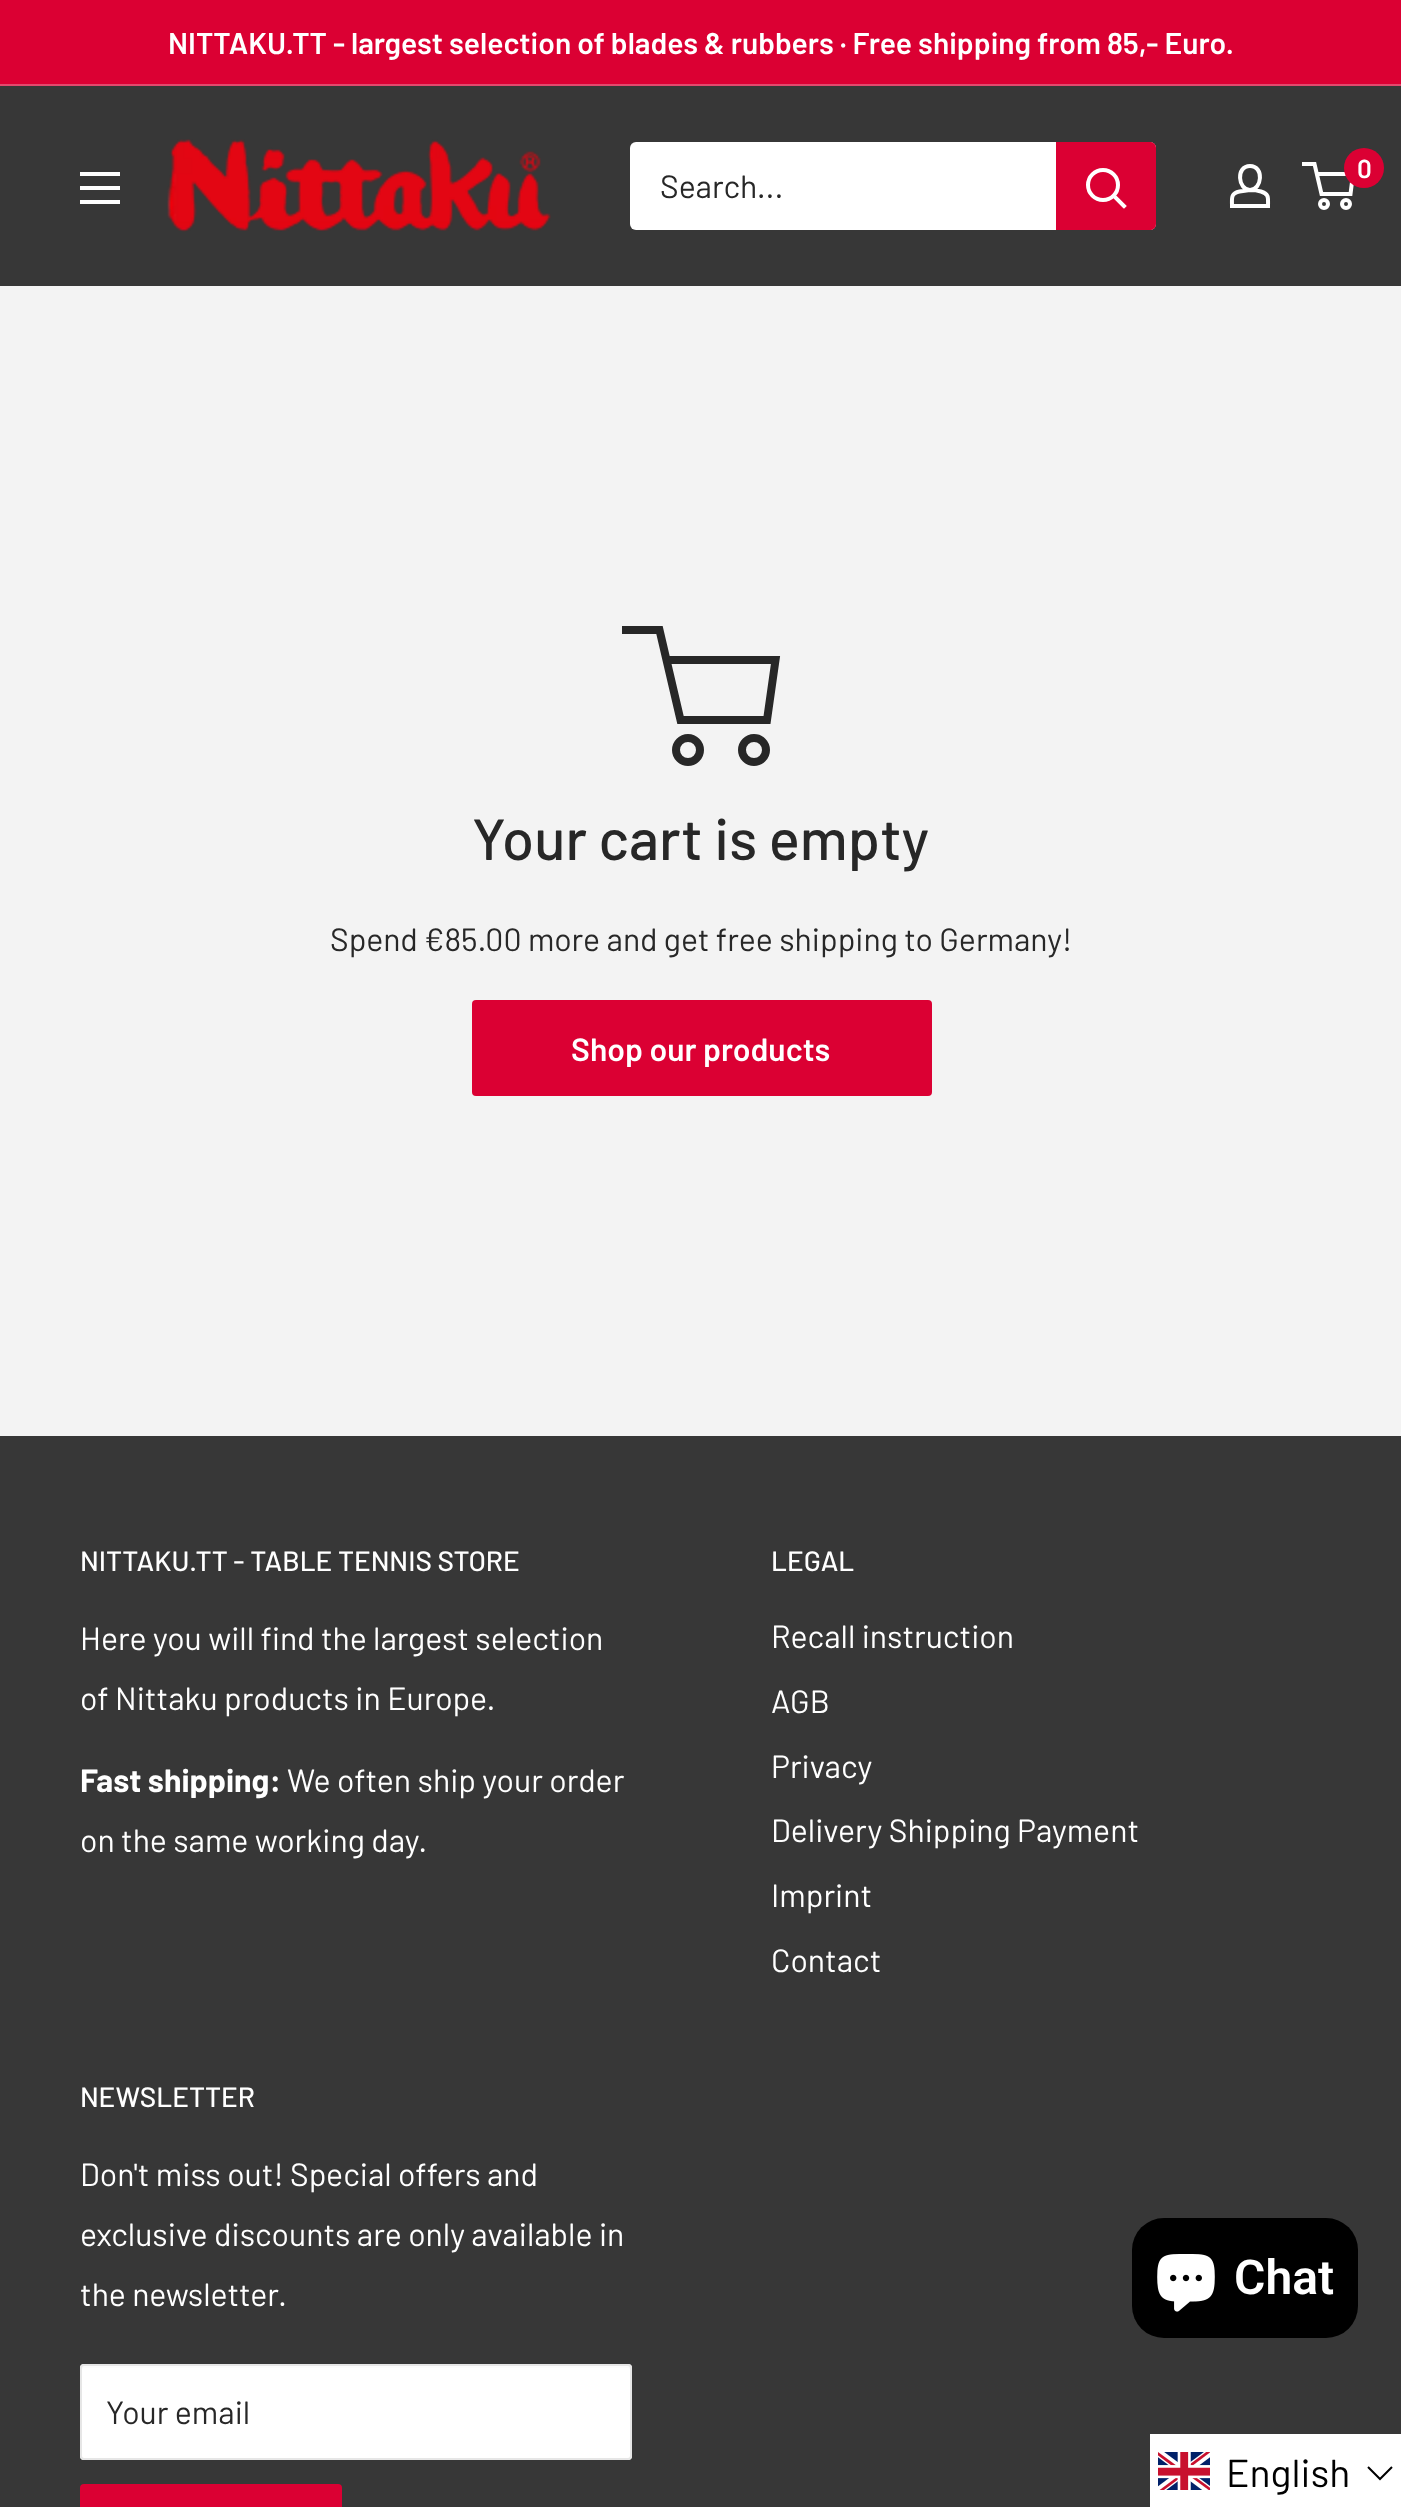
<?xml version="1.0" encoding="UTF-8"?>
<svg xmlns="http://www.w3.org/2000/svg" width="1401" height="2507">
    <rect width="100%" height="100%" fill="#F3F3F3"/>
    <rect x="0" y="0" width="1401" height="84" fill="#DB0033"/>
    <rect x="0" y="84" width="1401" height="2" fill="#E2496D"/>
    <text x="168" y="54" font-family="Barlow" font-size="30" font-weight="600" fill="#FFFFFF">NITTAKU.TT - largest selection of blades &amp; rubbers · Free shipping from 85,- Euro.</text>
    <rect x="0" y="86" width="1401" height="200" fill="#373737"/>
    <image x="167" y="139" width="384" height="93" href="img_01.png"/>
    <path d="M 1250 190 C 1254 190 1257.5 190.5 1261 191.5 C 1269.5 194 1268 198.5 1268 206 H 1232 C 1232 198 1230.5 193.5 1239.5 191.5 Z M 1250 190 C 1238 190 1235.5 166 1250 166 C 1264.5 166 1262 190 1250 190 Z" fill="none" stroke="#FFFFFF" stroke-width="4"/>
    <circle cx="1324" cy="204" r="4" fill="none" stroke="#FFFFFF" stroke-width="4"/>
    <circle cx="1346" cy="204" r="4" fill="none" stroke="#FFFFFF" stroke-width="4"/>
    <path d="M 1316.5 174 H 1353 L 1350.5 194 H 1321.5 L 1314.5 164 H 1302" fill="none" stroke="#FFFFFF" stroke-width="4"/>
    <circle cx="1364" cy="168" r="20" fill="#DB0033"/>
    <text x="1357" y="178" font-family="Barlow" font-size="26" font-weight="600" fill="#FFFFFF">0</text>
    <path d="M 80 200 H 120 V 204 H 80 Z M 80 172 H 120 V 176 H 80 Z M 80 186 H 120 V 190 H 80 Z" fill="#FFFFFF" fill-rule="evenodd"/>
    <rect x="630" y="142" width="526" height="88" rx="6" fill="#FFFFFF"/>
    <text x="660" y="198" font-family="Barlow" font-size="32" fill="#272727">Search...</text>
    <path d="M 1056 142 H 1150 C 1153.5 142 1156 144.5 1156 148 V 224 C 1156 227.5 1153.5 230 1150 230 H 1056 Z" fill="#DB0033"/>
    <path d="M 1124 206 L 1114 196" fill="none" stroke="#FFFFFF" stroke-width="4" stroke-linecap="square"/>
    <circle cx="1103" cy="185" r="15" fill="none" stroke="#FFFFFF" stroke-width="4"/>
    <path d="M 666 660 H 775.5 L 767 720 H 680.5 L 659.5 630 H 622" fill="none" stroke="#272727" stroke-width="8"/>
    <circle cx="688" cy="750" r="12" fill="none" stroke="#272727" stroke-width="8"/>
    <circle cx="754" cy="750" r="12" fill="none" stroke="#272727" stroke-width="8"/>
    <text x="472" y="860" font-family="Barlow" font-size="58" font-weight="500" fill="#272727">Your cart is empty</text>
    <text x="330" y="951" font-family="Barlow" font-size="32" fill="#272727">Spend €85.00 more and get free shipping to Germany!</text>
    <rect x="472" y="1000" width="460" height="96" rx="4" fill="#DB0033"/>
    <text x="571" y="1061" font-family="Barlow" font-size="32" font-weight="600" fill="#FFFFFF">Shop our products</text>
    <rect x="0" y="1436" width="1401" height="1071" fill="#373737"/>
    <text x="80" y="1571" font-family="Barlow" font-size="28" font-weight="500" fill="#FFFFFF">NITTAKU.TT - TABLE TENNIS STORE</text>
    <text font-family="Barlow" font-size="32" fill="#FFFFFF">
        <tspan x="80" y="1650">Here you will find the largest selection</tspan>
        <tspan x="80" y="1710">of Nittaku products in Europe.</tspan>
    </text>
    <text x="80" y="1792" font-family="Barlow" font-size="32" font-weight="700" fill="#FFFFFF">Fast shipping:</text>
    <text x="287" y="1792" font-family="Barlow" font-size="32" fill="#FFFFFF">We often ship your order</text>
    <text x="80" y="1852" font-family="Barlow" font-size="32" fill="#FFFFFF">on the same working day.</text>
    <text x="771" y="1571" font-family="Barlow" font-size="28" font-weight="500" fill="#FFFFFF">LEGAL</text>
    <text x="771" y="1648" font-family="Barlow" font-size="32" fill="#FFFFFF">Recall instruction</text>
    <text x="771" y="1713" font-family="Barlow" font-size="32" fill="#FFFFFF">AGB</text>
    <text x="771" y="1778" font-family="Barlow" font-size="32" fill="#FFFFFF">Privacy</text>
    <text x="771" y="1842" font-family="Barlow" font-size="32" fill="#FFFFFF">Delivery Shipping Payment</text>
    <text x="771" y="1907" font-family="Barlow" font-size="32" fill="#FFFFFF">Imprint</text>
    <text x="771" y="1972" font-family="Barlow" font-size="32" fill="#FFFFFF">Contact</text>
    <text x="80" y="2107" font-family="Barlow" font-size="28" font-weight="500" fill="#FFFFFF">NEWSLETTER</text>
    <text font-family="Barlow" font-size="32" fill="#FFFFFF">
        <tspan x="80" y="2186">Don't miss out! Special offers and</tspan>
        <tspan x="80" y="2246">exclusive discounts are only available in</tspan>
        <tspan x="80" y="2306">the newsletter.</tspan>
    </text>
    <rect x="80" y="2364" width="552" height="96" rx="4" fill="#FFFFFF"/>
    <path d="M 84 2368 H 628 C 629 2368 630 2369 630 2370 C 630 2368 630 2366 628 2366 H 84 L 82 2367 V 2370 C 82 2369 83 2368 84 2368 Z" fill="#FCFCFC"/>
    <rect x="81" y="2365" width="550" height="94" rx="3" fill="none" stroke="#E6E6E6" stroke-width="2"/>
    <text x="106" y="2424" font-family="Barlow" font-size="32" fill="#272727">Your email</text>
    <rect x="80" y="2484" width="262" height="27" rx="4" fill="#DB0033"/>
    <rect x="1132" y="2218" width="226" height="120" rx="32" fill="#000000"/>
    <image x="1157" y="2254" width="58" height="58" href="img_02.png"/>
    <text x="1234" y="2294" font-family="Roboto" font-size="48" font-weight="600" fill="#FFFFFF">Chat</text>
    <rect x="1150" y="2434" width="251" height="73" fill="#FFFFFF"/>
    <image x="1158" y="2452" width="52" height="38" href="img_03.png"/>
    <text x="1226" y="2487" font-family="Barlow" font-size="39" fill="#000000">English</text>
    <path d="M 1368 2467 L 1380 2479 L 1392 2467" fill="none" stroke="#000000" stroke-width="2"/>
</svg>
